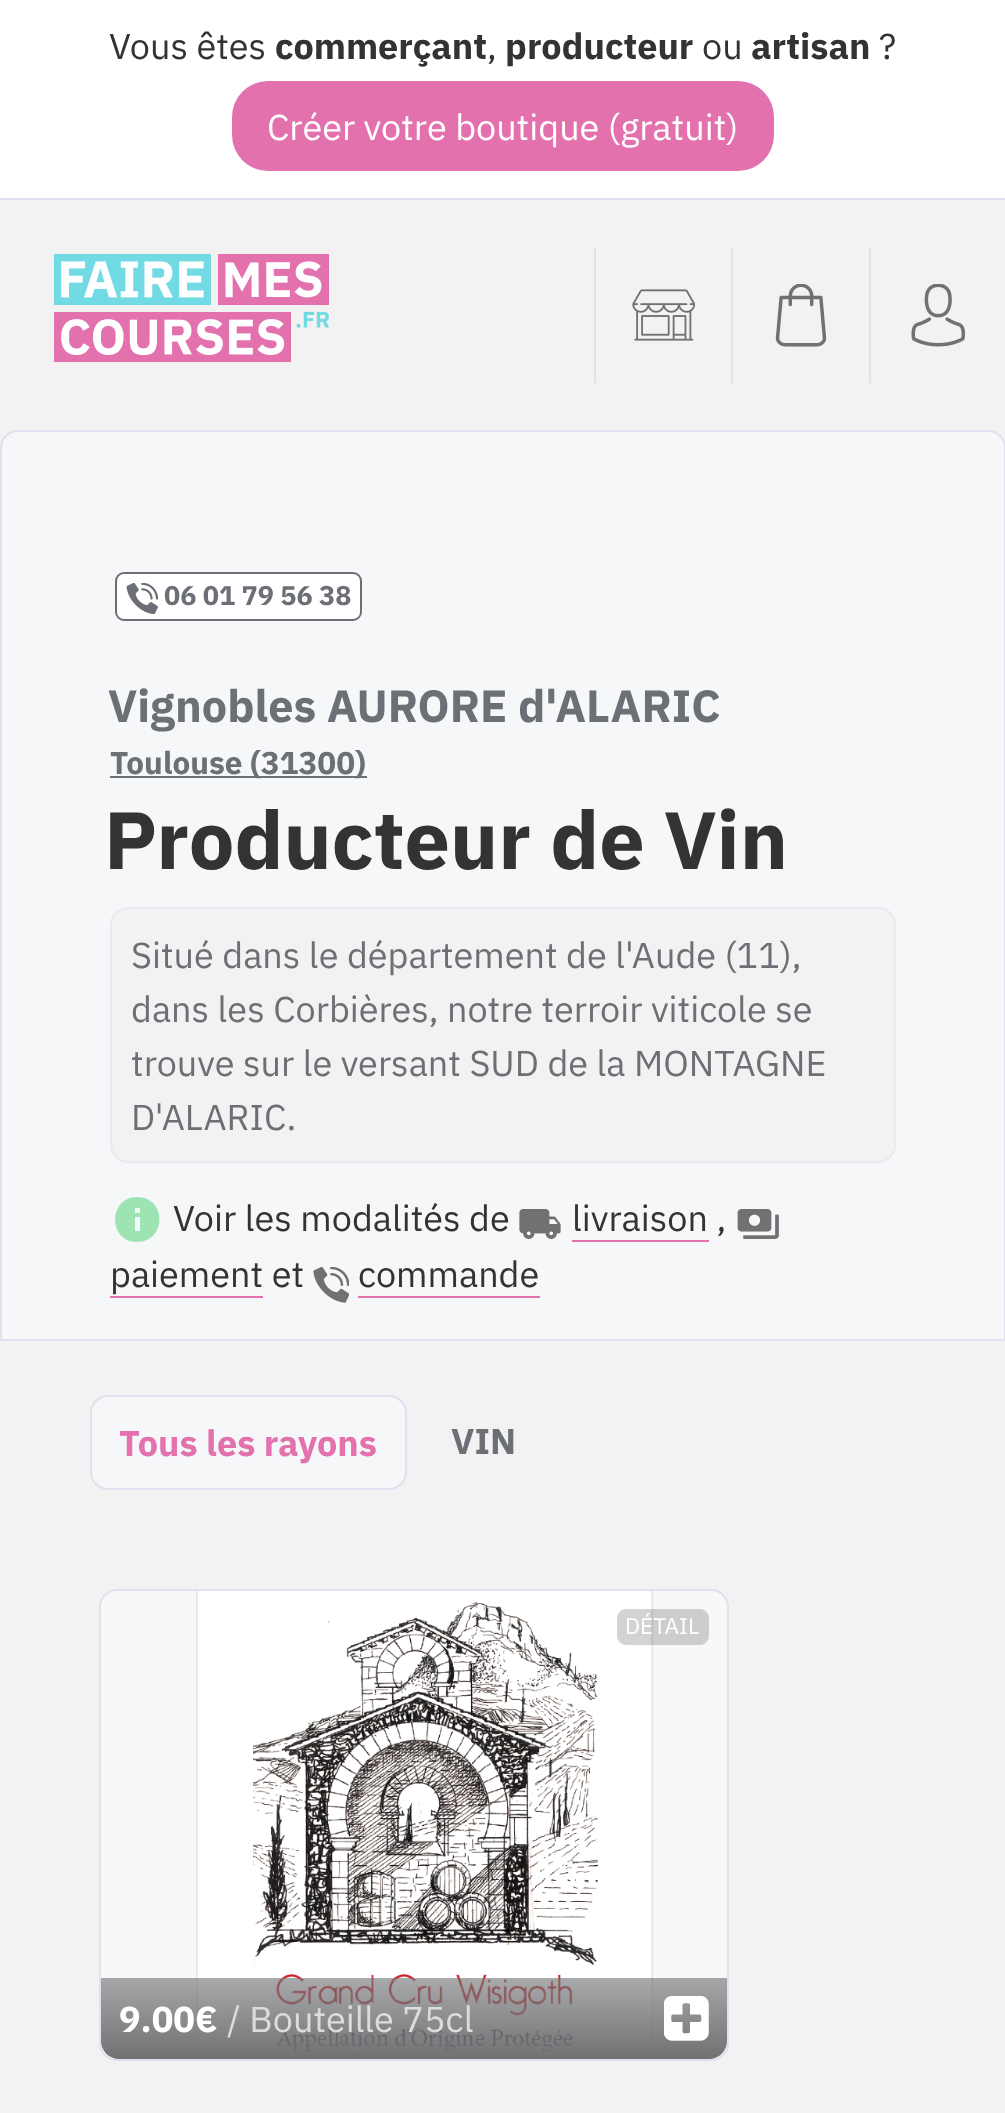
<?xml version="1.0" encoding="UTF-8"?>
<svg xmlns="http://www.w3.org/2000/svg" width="1005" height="2113">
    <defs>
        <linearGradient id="g1" gradientUnits="userSpaceOnUse" x1="414" y1="1978" x2="414" y2="2059"><stop offset="0" stop-color="#707173" stop-opacity="0.6"/><stop offset="1" stop-color="#707173"/></linearGradient>
    </defs>
    <rect width="100%" height="100%" fill="#F2F2F2"/>
    <rect x="0" y="0" width="1005" height="198" fill="#FFFFFF"/>
    <rect x="0" y="198" width="1005" height="2" fill="#E0E0EE"/>
    <text x="109" y="59" font-family="IBM Plex Sans" font-size="36" fill="#333333">Vous êtes</text>
    <text x="275" y="59" font-family="IBM Plex Sans" font-size="36" font-weight="700" fill="#333333">commerçant</text>
    <text x="487" y="59" font-family="IBM Plex Sans" font-size="36" fill="#333333">,</text>
    <text x="505" y="59" font-family="IBM Plex Sans" font-size="36" font-weight="700" fill="#333333">producteur</text>
    <text x="702" y="59" font-family="IBM Plex Sans" font-size="36" fill="#333333">ou</text>
    <text x="751" y="59" font-family="IBM Plex Sans" font-size="36" font-weight="700" fill="#333333">artisan</text>
    <text x="879" y="59" font-family="IBM Plex Sans" font-size="36" fill="#333333">?</text>
    <rect x="232" y="81" width="542" height="90" rx="36" fill="#E271AD"/>
    <text x="267" y="140" font-family="IBM Plex Sans" font-size="36" fill="#FFFFFF">Créer votre boutique (gratuit)</text>
    <image x="54" y="254" width="275" height="108" href="img_01.png"/>
    <rect x="594" y="248" width="2" height="135" fill="#E0E0EE"/>
    <image x="632" y="289" width="63" height="52" href="img_02.png"/>
    <rect x="731" y="248" width="2" height="135" fill="#E0E0EE"/>
    <image x="775" y="284" width="52" height="63" href="img_03.png"/>
    <rect x="869" y="248" width="2" height="135" fill="#E0E0EE"/>
    <image x="911" y="284" width="55" height="63" href="img_04.png"/>
    <path d="M 18 431 H 988 C 997.5 431 1005 438.5 1005 448 V 1340 H 1 V 448 C 1 438.5 8.5 431 18 431 Z" fill="#F6F7F9" stroke="#E0E0EE" stroke-width="2"/>
    <rect x="116" y="573" width="245" height="47" rx="8" fill="#FFFFFF" stroke="#6C6F75" stroke-width="2"/>
    <image x="126" y="583" width="32" height="31" href="img_05.png"/>
    <text x="164" y="605" font-family="IBM Plex Sans" font-size="27" font-weight="700" fill="#6C6F75">06 01 79 56 38</text>
    <text x="108" y="722" font-family="IBM Plex Sans" font-size="45" font-weight="700" fill="#6C6F75">Vignobles AURORE d'ALARIC</text>
    <rect x="110" y="776" width="257" height="2" fill="#6C6F75"/>
    <text x="110" y="774" font-family="IBM Plex Sans" font-size="31.5" font-weight="700" fill="#6C6F75">Toulouse (31300)</text>
    <text x="104" y="869" font-family="IBM Plex Sans" font-size="81" font-weight="700" fill="#333333">Producteur de Vin</text>
    <rect x="111" y="908" width="784" height="254" rx="17" fill="#F2F2F2" stroke="#E8E9F2" stroke-width="2"/>
    <text font-family="IBM Plex Sans" font-size="36" fill="#6C6F75">
        <tspan x="131" y="968">Situé dans le département de l'Aude (11),</tspan>
        <tspan x="131" y="1022">dans les Corbières, notre terroir viticole se</tspan>
        <tspan x="131" y="1076">trouve sur le versant SUD de la MONTAGNE</tspan>
        <tspan x="131" y="1130">D'ALARIC.</tspan>
    </text>
    <path d="M 137 1197 C 108 1197 108 1242 137 1242 C 167 1242 167 1197 137 1197 Z M 140 1231 H 135 V 1217 H 140 Z M 140 1213 H 135 V 1208 H 140 Z" fill="#9EE3B2"/>
    <text x="173" y="1231" font-family="IBM Plex Sans" font-size="36" fill="#333333">Voir les modalités de</text>
    <image x="519" y="1209" width="42" height="30" href="img_06.png"/>
    <text x="572" y="1231" font-family="IBM Plex Sans" font-size="36" fill="#333333">livraison ,</text>
    <rect x="572" y="1240" width="137" height="2" fill="#E271AD"/>
    <image x="737" y="1209" width="42" height="30" href="img_07.png"/>
    <text x="110" y="1287" font-family="IBM Plex Sans" font-size="36" fill="#333333">paiement et</text>
    <rect x="110" y="1296" width="153" height="2" fill="#E271AD"/>
    <image x="313" y="1267" width="36" height="36" href="img_08.png"/>
    <text x="358" y="1287" font-family="IBM Plex Sans" font-size="36" fill="#333333">commande</text>
    <rect x="358" y="1296" width="182" height="2" fill="#E271AD"/>
    <rect x="91" y="1396" width="315" height="93" rx="17" fill="#F6F7F9" stroke="#E0E0EE" stroke-width="2"/>
    <text x="119" y="1456" font-family="IBM Plex Sans" font-size="36" font-weight="700" fill="#E271AD">Tous les rayons</text>
    <text x="451" y="1454" font-family="IBM Plex Sans" font-size="36" font-weight="700" fill="#6C6F75">VIN</text>
    <image x="101" y="1590" width="626" height="471" href="img_09.png"/>
    <rect x="100" y="1590" width="628" height="470" rx="17" fill="none" stroke="#E0E0EE" stroke-width="2"/>
    <rect x="617" y="1609" width="92" height="36" rx="9" fill="#212121" fill-opacity="0.2"/>
    <text x="625" y="1634" font-family="IBM Plex Sans" font-size="22.5" fill="#FFFFFF">DÉTAIL</text>
    <path d="M 101 1978 H 727 V 2041 C 727 2051 719 2059 709 2059 H 119 C 109 2059 101 2051 101 2041 Z" fill="url(#g1)"/>
    <text x="119" y="2032" font-family="IBM Plex Sans" font-size="36" font-weight="700" fill="#FFFFFF">9.00€</text>
    <text x="227" y="2032" font-family="IBM Plex Sans" font-size="36" fill="#DCDCDD">/ Bouteille 75cl</text>
    <image x="664" y="1996" width="45" height="45" href="img_10.png"/>
</svg>
